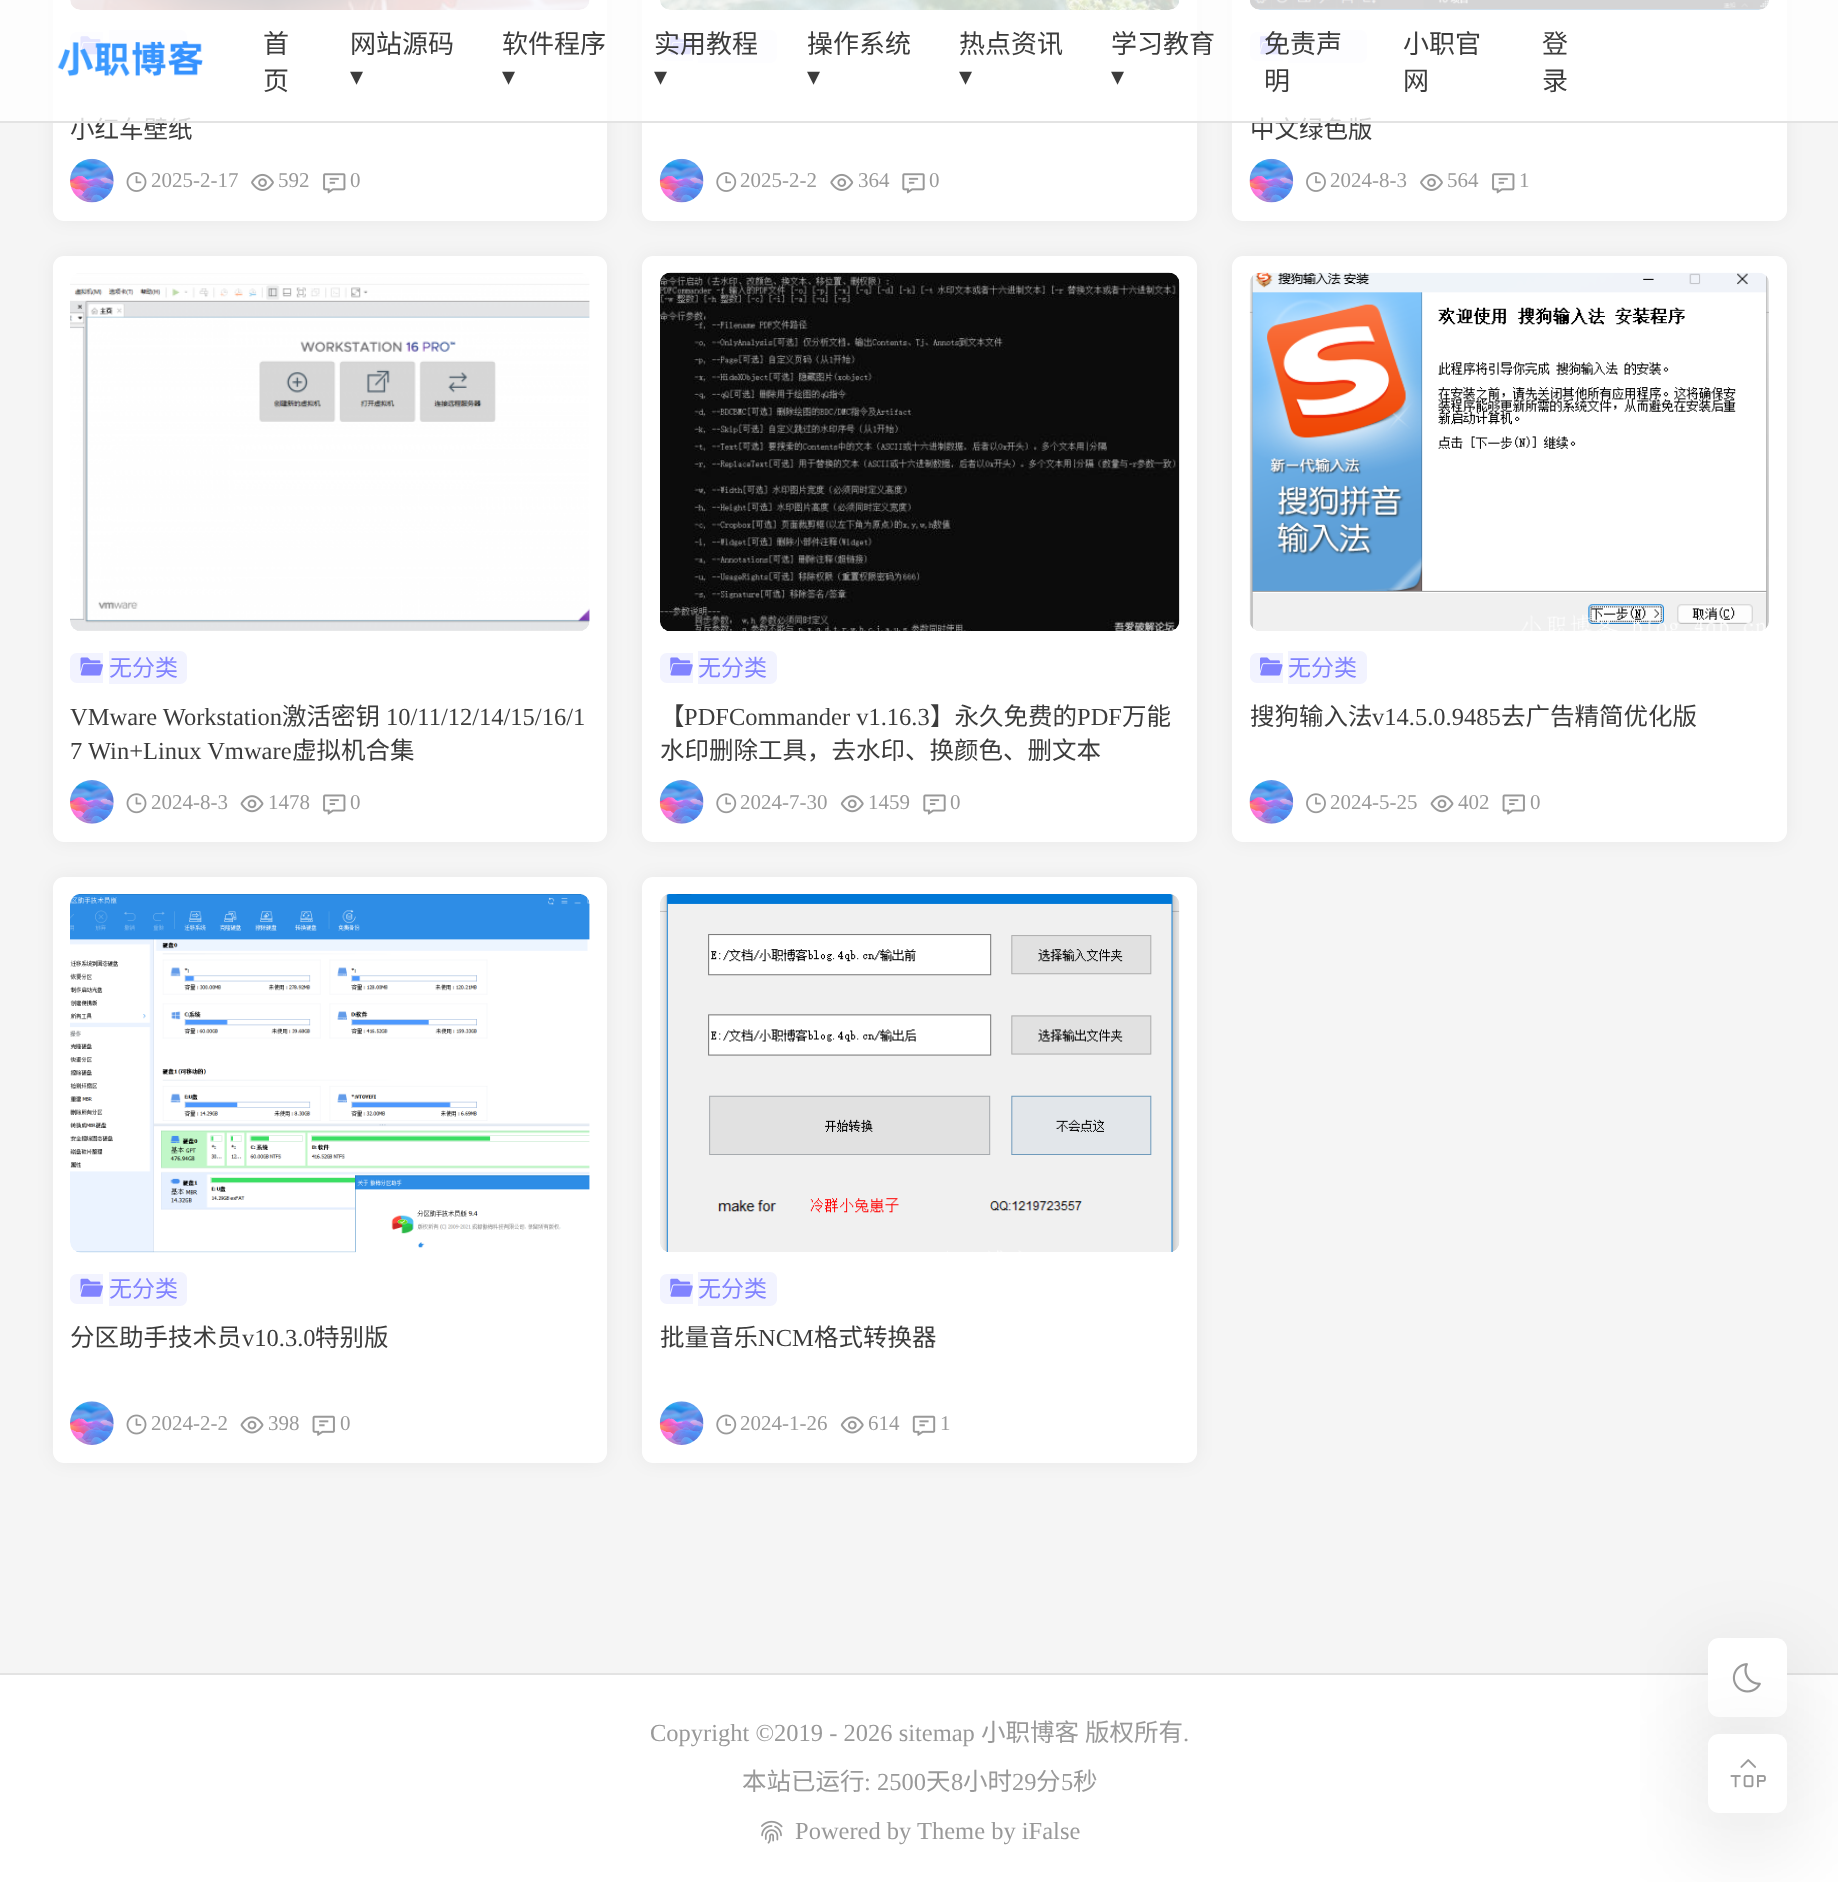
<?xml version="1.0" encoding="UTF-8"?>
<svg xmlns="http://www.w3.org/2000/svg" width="1838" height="1882">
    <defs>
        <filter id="blur1" x="-50%" y="-200%" width="200%" height="500%"><feGaussianBlur stdDeviation="9"/></filter>
        <filter id="blur2" x="-50%" y="-200%" width="200%" height="500%"><feGaussianBlur stdDeviation="42"/></filter>
    </defs>
    <rect width="100%" height="100%" fill="#F5F5F5"/>
    <rect x="53" y="-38" width="554" height="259" rx="11" fill="#1C1F23" fill-opacity="0.05" filter="url(#blur1)"/>
    <rect x="53" y="-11" width="554" height="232" rx="11" fill="#FFFFFF"/>
    <image x="70" y="0" width="520" height="10" href="img_02.png"/>
    <path d="M 77 32 H 103 V 61 H 77 C 73 61 70 58 70 54 V 39 C 70 35 73 32 77 32 Z" fill="#F2F3FF"/>
    <path d="M 109 30 H 180 C 184 30 187 33 187 37 V 56 C 187 60 184 63 180 63 H 109 Z" fill="#F2F3FF"/>
    <image x="80" y="36" width="23" height="19" href="img_03.png"/>
    <text x="70" y="138" font-family="Noto Sans CJK SC" font-size="24.5" fill="#3C3C3C">小红车壁纸</text>
    <rect x="642" y="-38" width="555" height="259" rx="11" fill="#1C1F23" fill-opacity="0.05" filter="url(#blur1)"/>
    <rect x="642" y="-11" width="555" height="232" rx="11" fill="#FFFFFF"/>
    <image x="660" y="0" width="520" height="10" href="img_08.png"/>
    <path d="M 667 32 H 693 V 61 H 667 C 663 61 660 58 660 54 V 39 C 660 35 663 32 667 32 Z" fill="#F2F3FF"/>
    <path d="M 698 30 H 770 C 774 30 777 33 777 37 V 56 C 777 60 774 63 770 63 H 698 Z" fill="#F2F3FF"/>
    <image x="670" y="36" width="23" height="19" href="img_09.png"/>
    <rect x="1232" y="-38" width="555" height="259" rx="11" fill="#1C1F23" fill-opacity="0.05" filter="url(#blur1)"/>
    <rect x="1232" y="-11" width="555" height="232" rx="11" fill="#FFFFFF"/>
    <image x="1249" y="0" width="520" height="10" href="img_14.png"/>
    <path d="M 1257 32 H 1283 V 61 H 1257 C 1253 61 1250 58 1250 54 V 39 C 1250 35 1253 32 1257 32 Z" fill="#F2F3FF"/>
    <path d="M 1288 30 H 1360 C 1364 30 1367 33 1367 37 V 56 C 1367 60 1364 63 1360 63 H 1288 Z" fill="#F2F3FF"/>
    <image x="1260" y="36" width="23" height="19" href="img_15.png"/>
    <text x="1250" y="138" font-family="Noto Sans CJK SC" font-size="24.5" fill="#3C3C3C">中文绿色版</text>
    <rect x="0" y="0" width="1838" height="121" fill="#FFFFFF" fill-opacity="0.8"/>
    <rect x="0" y="121" width="1838" height="2" fill="#E3E3E3"/>
    <image x="57" y="41" width="146" height="36" href="img_01.png"/>
    <text font-family="Noto Sans CJK SC" font-size="26" fill="#3C3C3C">
        <tspan x="263" y="53">首</tspan>
        <tspan x="263" y="90">页</tspan>
    </text>
    <text x="350" y="53" font-family="Noto Sans CJK SC" font-size="26" fill="#3C3C3C">网站源码</text>
    <text x="350" y="85" font-family="DejaVu Sans" font-size="26" fill="#3C3C3C">▾</text>
    <text x="502" y="53" font-family="Noto Sans CJK SC" font-size="26" fill="#3C3C3C">软件程序</text>
    <text x="502" y="85" font-family="DejaVu Sans" font-size="26" fill="#3C3C3C">▾</text>
    <text x="654" y="53" font-family="Noto Sans CJK SC" font-size="26" fill="#3C3C3C">实用教程</text>
    <text x="654" y="85" font-family="DejaVu Sans" font-size="26" fill="#3C3C3C">▾</text>
    <text x="807" y="53" font-family="Noto Sans CJK SC" font-size="26" fill="#3C3C3C">操作系统</text>
    <text x="807" y="85" font-family="DejaVu Sans" font-size="26" fill="#3C3C3C">▾</text>
    <text x="959" y="53" font-family="Noto Sans CJK SC" font-size="26" fill="#3C3C3C">热点资讯</text>
    <text x="959" y="85" font-family="DejaVu Sans" font-size="26" fill="#3C3C3C">▾</text>
    <text x="1111" y="53" font-family="Noto Sans CJK SC" font-size="26" fill="#3C3C3C">学习教育</text>
    <text x="1111" y="85" font-family="DejaVu Sans" font-size="26" fill="#3C3C3C">▾</text>
    <text font-family="Noto Sans CJK SC" font-size="26" fill="#3C3C3C">
        <tspan x="1264" y="53">免责声</tspan>
        <tspan x="1264" y="90">明</tspan>
    </text>
    <text font-family="Noto Sans CJK SC" font-size="26" fill="#3C3C3C">
        <tspan x="1403" y="53">小职官</tspan>
        <tspan x="1403" y="90">网</tspan>
    </text>
    <text font-family="Noto Sans CJK SC" font-size="26" fill="#3C3C3C">
        <tspan x="1542" y="53">登</tspan>
        <tspan x="1542" y="90">录</tspan>
    </text>
    <image x="70" y="158" width="44" height="45" href="img_04.png"/>
    <image x="126" y="172" width="21" height="20" href="img_05.png"/>
    <text x="151" y="187" font-family="Liberation Serif" font-size="21" fill="#999999">2025-2-17</text>
    <image x="251" y="173" width="23" height="18" href="img_06.png"/>
    <text x="278" y="187" font-family="Liberation Serif" font-size="21" fill="#999999">592</text>
    <image x="323" y="173" width="23" height="21" href="img_07.png"/>
    <text x="350" y="187" font-family="Liberation Serif" font-size="21" fill="#999999">0</text>
    <image x="659" y="158" width="45" height="45" href="img_10.png"/>
    <image x="716" y="172" width="21" height="20" href="img_11.png"/>
    <text x="740" y="187" font-family="Liberation Serif" font-size="21" fill="#999999">2025-2-2</text>
    <image x="830" y="173" width="24" height="18" href="img_12.png"/>
    <text x="858" y="187" font-family="Liberation Serif" font-size="21" fill="#999999">364</text>
    <image x="902" y="173" width="23" height="21" href="img_13.png"/>
    <text x="929" y="187" font-family="Liberation Serif" font-size="21" fill="#999999">0</text>
    <image x="1249" y="158" width="45" height="45" href="img_16.png"/>
    <image x="1306" y="172" width="20" height="20" href="img_17.png"/>
    <text x="1330" y="187" font-family="Liberation Serif" font-size="21" fill="#999999">2024-8-3</text>
    <image x="1420" y="173" width="23" height="18" href="img_06.png"/>
    <text x="1447" y="187" font-family="Liberation Serif" font-size="21" fill="#999999">564</text>
    <image x="1492" y="173" width="23" height="21" href="img_07.png"/>
    <text x="1519" y="187" font-family="Liberation Serif" font-size="21" fill="#999999">1</text>
    <rect x="53" y="256" width="554" height="586" rx="11" fill="#1C1F23" fill-opacity="0.05" filter="url(#blur1)"/>
    <rect x="53" y="256" width="554" height="586" rx="11" fill="#FFFFFF"/>
    <image x="70" y="273" width="520" height="358" href="img_18.png"/>
    <path d="M 77 653 H 103 V 683 H 77 C 73 683 70 680 70 676 V 660 C 70 656 73 653 77 653 Z" fill="#F2F3FF"/>
    <image x="80" y="657" width="23" height="19" href="img_19.png"/>
    <path d="M 109 651 H 180 C 184 651 187 654 187 658 V 677 C 187 681 184 684 180 684 H 109 Z" fill="#F2F3FF"/>
    <text x="109" y="676" font-family="Noto Sans CJK SC" font-size="23" fill="#8183FF">无分类</text>
    <text x="70" y="725" font-family="Liberation Serif" font-size="24.5" fill="#3C3C3C">VMware Workstation</text>
    <text x="282" y="725" font-family="Noto Sans CJK SC" font-size="24.5" fill="#3C3C3C">激活密钥</text>
    <text x="386" y="725" font-family="Liberation Serif" font-size="24.5" fill="#3C3C3C">10/11/12/14/15/16/1</text>
    <text x="70" y="759" font-family="Liberation Serif" font-size="24.5" fill="#3C3C3C">7 Win+Linux Vmware</text>
    <text x="292" y="759" font-family="Noto Sans CJK SC" font-size="24.5" fill="#3C3C3C">虚拟机合集</text>
    <image x="70" y="780" width="44" height="44" href="img_20.png"/>
    <image x="126" y="793" width="21" height="21" href="img_21.png"/>
    <text x="151" y="809" font-family="Liberation Serif" font-size="21" fill="#999999">2024-8-3</text>
    <image x="240" y="795" width="24" height="18" href="img_22.png"/>
    <text x="268" y="809" font-family="Liberation Serif" font-size="21" fill="#999999">1478</text>
    <image x="323" y="794" width="23" height="21" href="img_23.png"/>
    <text x="350" y="809" font-family="Liberation Serif" font-size="21" fill="#999999">0</text>
    <rect x="642" y="256" width="555" height="586" rx="11" fill="#1C1F23" fill-opacity="0.05" filter="url(#blur1)"/>
    <rect x="642" y="256" width="555" height="586" rx="11" fill="#FFFFFF"/>
    <image x="660" y="272" width="520" height="359" href="img_24.png"/>
    <path d="M 667 653 H 693 V 683 H 667 C 663 683 660 680 660 676 V 660 C 660 656 663 653 667 653 Z" fill="#F2F3FF"/>
    <image x="670" y="657" width="23" height="19" href="img_25.png"/>
    <path d="M 698 651 H 770 C 774 651 777 654 777 658 V 677 C 777 681 774 684 770 684 H 698 Z" fill="#F2F3FF"/>
    <text x="698" y="676" font-family="Noto Sans CJK SC" font-size="23" fill="#8183FF">无分类</text>
    <text x="660" y="725" font-family="Noto Sans CJK SC" font-size="24.5" fill="#3C3C3C">【</text>
    <text x="684" y="725" font-family="Liberation Serif" font-size="24.5" fill="#3C3C3C">PDFCommander v1.16.3</text>
    <text x="930" y="725" font-family="Noto Sans CJK SC" font-size="24.5" fill="#3C3C3C">】永久免费的</text>
    <text x="1077" y="725" font-family="Liberation Serif" font-size="24.5" fill="#3C3C3C">PDF</text>
    <text x="1122" y="725" font-family="Noto Sans CJK SC" font-size="24.5" fill="#3C3C3C">万能</text>
    <text x="660" y="759" font-family="Noto Sans CJK SC" font-size="24.5" fill="#3C3C3C">水印删除工具，去水印、换颜色、删文本</text>
    <image x="659" y="780" width="45" height="44" href="img_26.png"/>
    <image x="716" y="793" width="21" height="21" href="img_27.png"/>
    <text x="740" y="809" font-family="Liberation Serif" font-size="21" fill="#999999">2024-7-30</text>
    <image x="840" y="795" width="24" height="18" href="img_28.png"/>
    <text x="868" y="809" font-family="Liberation Serif" font-size="21" fill="#999999">1459</text>
    <image x="923" y="794" width="23" height="21" href="img_29.png"/>
    <text x="950" y="809" font-family="Liberation Serif" font-size="21" fill="#999999">0</text>
    <rect x="1232" y="256" width="555" height="586" rx="11" fill="#1C1F23" fill-opacity="0.05" filter="url(#blur1)"/>
    <rect x="1232" y="256" width="555" height="586" rx="11" fill="#FFFFFF"/>
    <image x="1249" y="272" width="520" height="359" href="img_30.png"/>
    <path d="M 1257 653 H 1283 V 683 H 1257 C 1253 683 1250 680 1250 676 V 660 C 1250 656 1253 653 1257 653 Z" fill="#F2F3FF"/>
    <image x="1260" y="657" width="23" height="19" href="img_31.png"/>
    <path d="M 1288 651 H 1360 C 1364 651 1367 654 1367 658 V 677 C 1367 681 1364 684 1360 684 H 1288 Z" fill="#F2F3FF"/>
    <text x="1288" y="676" font-family="Noto Sans CJK SC" font-size="23" fill="#8183FF">无分类</text>
    <text x="1250" y="725" font-family="Noto Sans CJK SC" font-size="24.5" fill="#3C3C3C">搜狗输入法</text>
    <text x="1372" y="725" font-family="Liberation Serif" font-size="24.5" fill="#3C3C3C">v14.5.0.9485</text>
    <text x="1501" y="725" font-family="Noto Sans CJK SC" font-size="24.5" fill="#3C3C3C">去广告精简优化版</text>
    <image x="1249" y="780" width="45" height="44" href="img_32.png"/>
    <image x="1306" y="793" width="20" height="21" href="img_33.png"/>
    <text x="1330" y="809" font-family="Liberation Serif" font-size="21" fill="#999999">2024-5-25</text>
    <image x="1430" y="795" width="24" height="18" href="img_22.png"/>
    <text x="1458" y="809" font-family="Liberation Serif" font-size="21" fill="#999999">402</text>
    <image x="1502" y="794" width="23" height="21" href="img_34.png"/>
    <text x="1530" y="809" font-family="Liberation Serif" font-size="21" fill="#999999">0</text>
    <rect x="53" y="877" width="554" height="586" rx="11" fill="#1C1F23" fill-opacity="0.05" filter="url(#blur1)"/>
    <rect x="53" y="877" width="554" height="586" rx="11" fill="#FFFFFF"/>
    <image x="70" y="894" width="520" height="359" href="img_35.png"/>
    <path d="M 77 1274 H 103 V 1304 H 77 C 73 1304 70 1301 70 1297 V 1281 C 70 1277 73 1274 77 1274 Z" fill="#F2F3FF"/>
    <image x="80" y="1278" width="23" height="19" href="img_36.png"/>
    <path d="M 109 1272 H 180 C 184 1272 187 1275 187 1279 V 1299 C 187 1303 184 1306 180 1306 H 109 Z" fill="#F2F3FF"/>
    <text x="109" y="1297" font-family="Noto Sans CJK SC" font-size="23" fill="#8183FF">无分类</text>
    <text x="70" y="1346" font-family="Noto Sans CJK SC" font-size="24.5" fill="#3C3C3C">分区助手技术员</text>
    <text x="242" y="1346" font-family="Liberation Serif" font-size="24.5" fill="#3C3C3C">v10.3.0</text>
    <text x="315" y="1346" font-family="Noto Sans CJK SC" font-size="24.5" fill="#3C3C3C">特别版</text>
    <image x="70" y="1401" width="44" height="44" href="img_37.png"/>
    <image x="126" y="1414" width="21" height="21" href="img_38.png"/>
    <text x="151" y="1430" font-family="Liberation Serif" font-size="21" fill="#999999">2024-2-2</text>
    <image x="240" y="1416" width="24" height="18" href="img_39.png"/>
    <text x="268" y="1430" font-family="Liberation Serif" font-size="21" fill="#999999">398</text>
    <image x="312" y="1415" width="23" height="21" href="img_40.png"/>
    <text x="340" y="1430" font-family="Liberation Serif" font-size="21" fill="#999999">0</text>
    <rect x="642" y="877" width="555" height="586" rx="11" fill="#1C1F23" fill-opacity="0.05" filter="url(#blur1)"/>
    <rect x="642" y="877" width="555" height="586" rx="11" fill="#FFFFFF"/>
    <image x="660" y="894" width="520" height="358" href="img_41.png"/>
    <path d="M 667 1274 H 693 V 1304 H 667 C 663 1304 660 1301 660 1297 V 1281 C 660 1277 663 1274 667 1274 Z" fill="#F2F3FF"/>
    <image x="670" y="1278" width="23" height="19" href="img_42.png"/>
    <path d="M 698 1272 H 770 C 774 1272 777 1275 777 1279 V 1299 C 777 1303 774 1306 770 1306 H 698 Z" fill="#F2F3FF"/>
    <text x="698" y="1297" font-family="Noto Sans CJK SC" font-size="23" fill="#8183FF">无分类</text>
    <text x="660" y="1346" font-family="Noto Sans CJK SC" font-size="24.5" fill="#3C3C3C">批量音乐</text>
    <text x="758" y="1346" font-family="Liberation Serif" font-size="24.5" fill="#3C3C3C">NCM</text>
    <text x="814" y="1346" font-family="Noto Sans CJK SC" font-size="24.5" fill="#3C3C3C">格式转换器</text>
    <image x="659" y="1401" width="45" height="44" href="img_43.png"/>
    <image x="716" y="1414" width="21" height="21" href="img_44.png"/>
    <text x="740" y="1430" font-family="Liberation Serif" font-size="21" fill="#999999">2024-1-26</text>
    <image x="840" y="1416" width="24" height="18" href="img_45.png"/>
    <text x="868" y="1430" font-family="Liberation Serif" font-size="21" fill="#999999">614</text>
    <image x="912" y="1415" width="24" height="21" href="img_46.png"/>
    <text x="940" y="1430" font-family="Liberation Serif" font-size="21" fill="#999999">1</text>
    <rect x="0" y="1675" width="1838" height="207" fill="#FFFFFF"/>
    <rect x="0" y="1673" width="1838" height="2" fill="#E3E3E3"/>
    <rect x="1694" y="1652" width="107" height="107" rx="25" fill="#1C1F23" fill-opacity="0.08" filter="url(#blur2)"/>
    <rect x="1708" y="1638" width="79" height="79" rx="11" fill="#FFFFFF"/>
    <image x="1732" y="1663" width="29" height="30" href="img_47.png"/>
    <text x="650" y="1741" font-family="Liberation Serif" font-size="24.5" fill="#999999">Copyright ©2019 - 2026 sitemap</text>
    <text x="981" y="1741" font-family="Noto Sans CJK SC" font-size="24.5" fill="#999999">小职博客</text>
    <text x="1085" y="1741" font-family="Noto Sans CJK SC" font-size="24.5" fill="#999999">版权所有</text>
    <text x="1183" y="1741" font-family="Liberation Serif" font-size="24.5" fill="#999999">.</text>
    <text x="742" y="1790" font-family="Noto Sans CJK SC" font-size="24.5" fill="#999999">本站已运行</text>
    <text x="864" y="1790" font-family="Liberation Serif" font-size="24.5" fill="#999999">: 2500</text>
    <text x="926" y="1790" font-family="Noto Sans CJK SC" font-size="24.5" fill="#999999">天</text>
    <text x="951" y="1790" font-family="Liberation Serif" font-size="24.5" fill="#999999">8</text>
    <text x="963" y="1790" font-family="Noto Sans CJK SC" font-size="24.5" fill="#999999">小时</text>
    <text x="1012" y="1790" font-family="Liberation Serif" font-size="24.5" fill="#999999">29</text>
    <text x="1036" y="1790" font-family="Noto Sans CJK SC" font-size="24.5" fill="#999999">分</text>
    <text x="1061" y="1790" font-family="Liberation Serif" font-size="24.5" fill="#999999">5</text>
    <text x="1073" y="1790" font-family="Noto Sans CJK SC" font-size="24.5" fill="#999999">秒</text>
    <image x="761" y="1820" width="22" height="24" href="img_48.png"/>
    <text x="795" y="1839" font-family="Liberation Serif" font-size="24.5" fill="#999999">Powered by Theme by iFalse</text>
    <rect x="1694" y="1748" width="107" height="107" rx="25" fill="#1C1F23" fill-opacity="0.08" filter="url(#blur2)"/>
    <rect x="1708" y="1734" width="79" height="79" rx="11" fill="#FFFFFF"/>
    <image x="1730" y="1759" width="36" height="29" href="img_49.png"/>
</svg>
